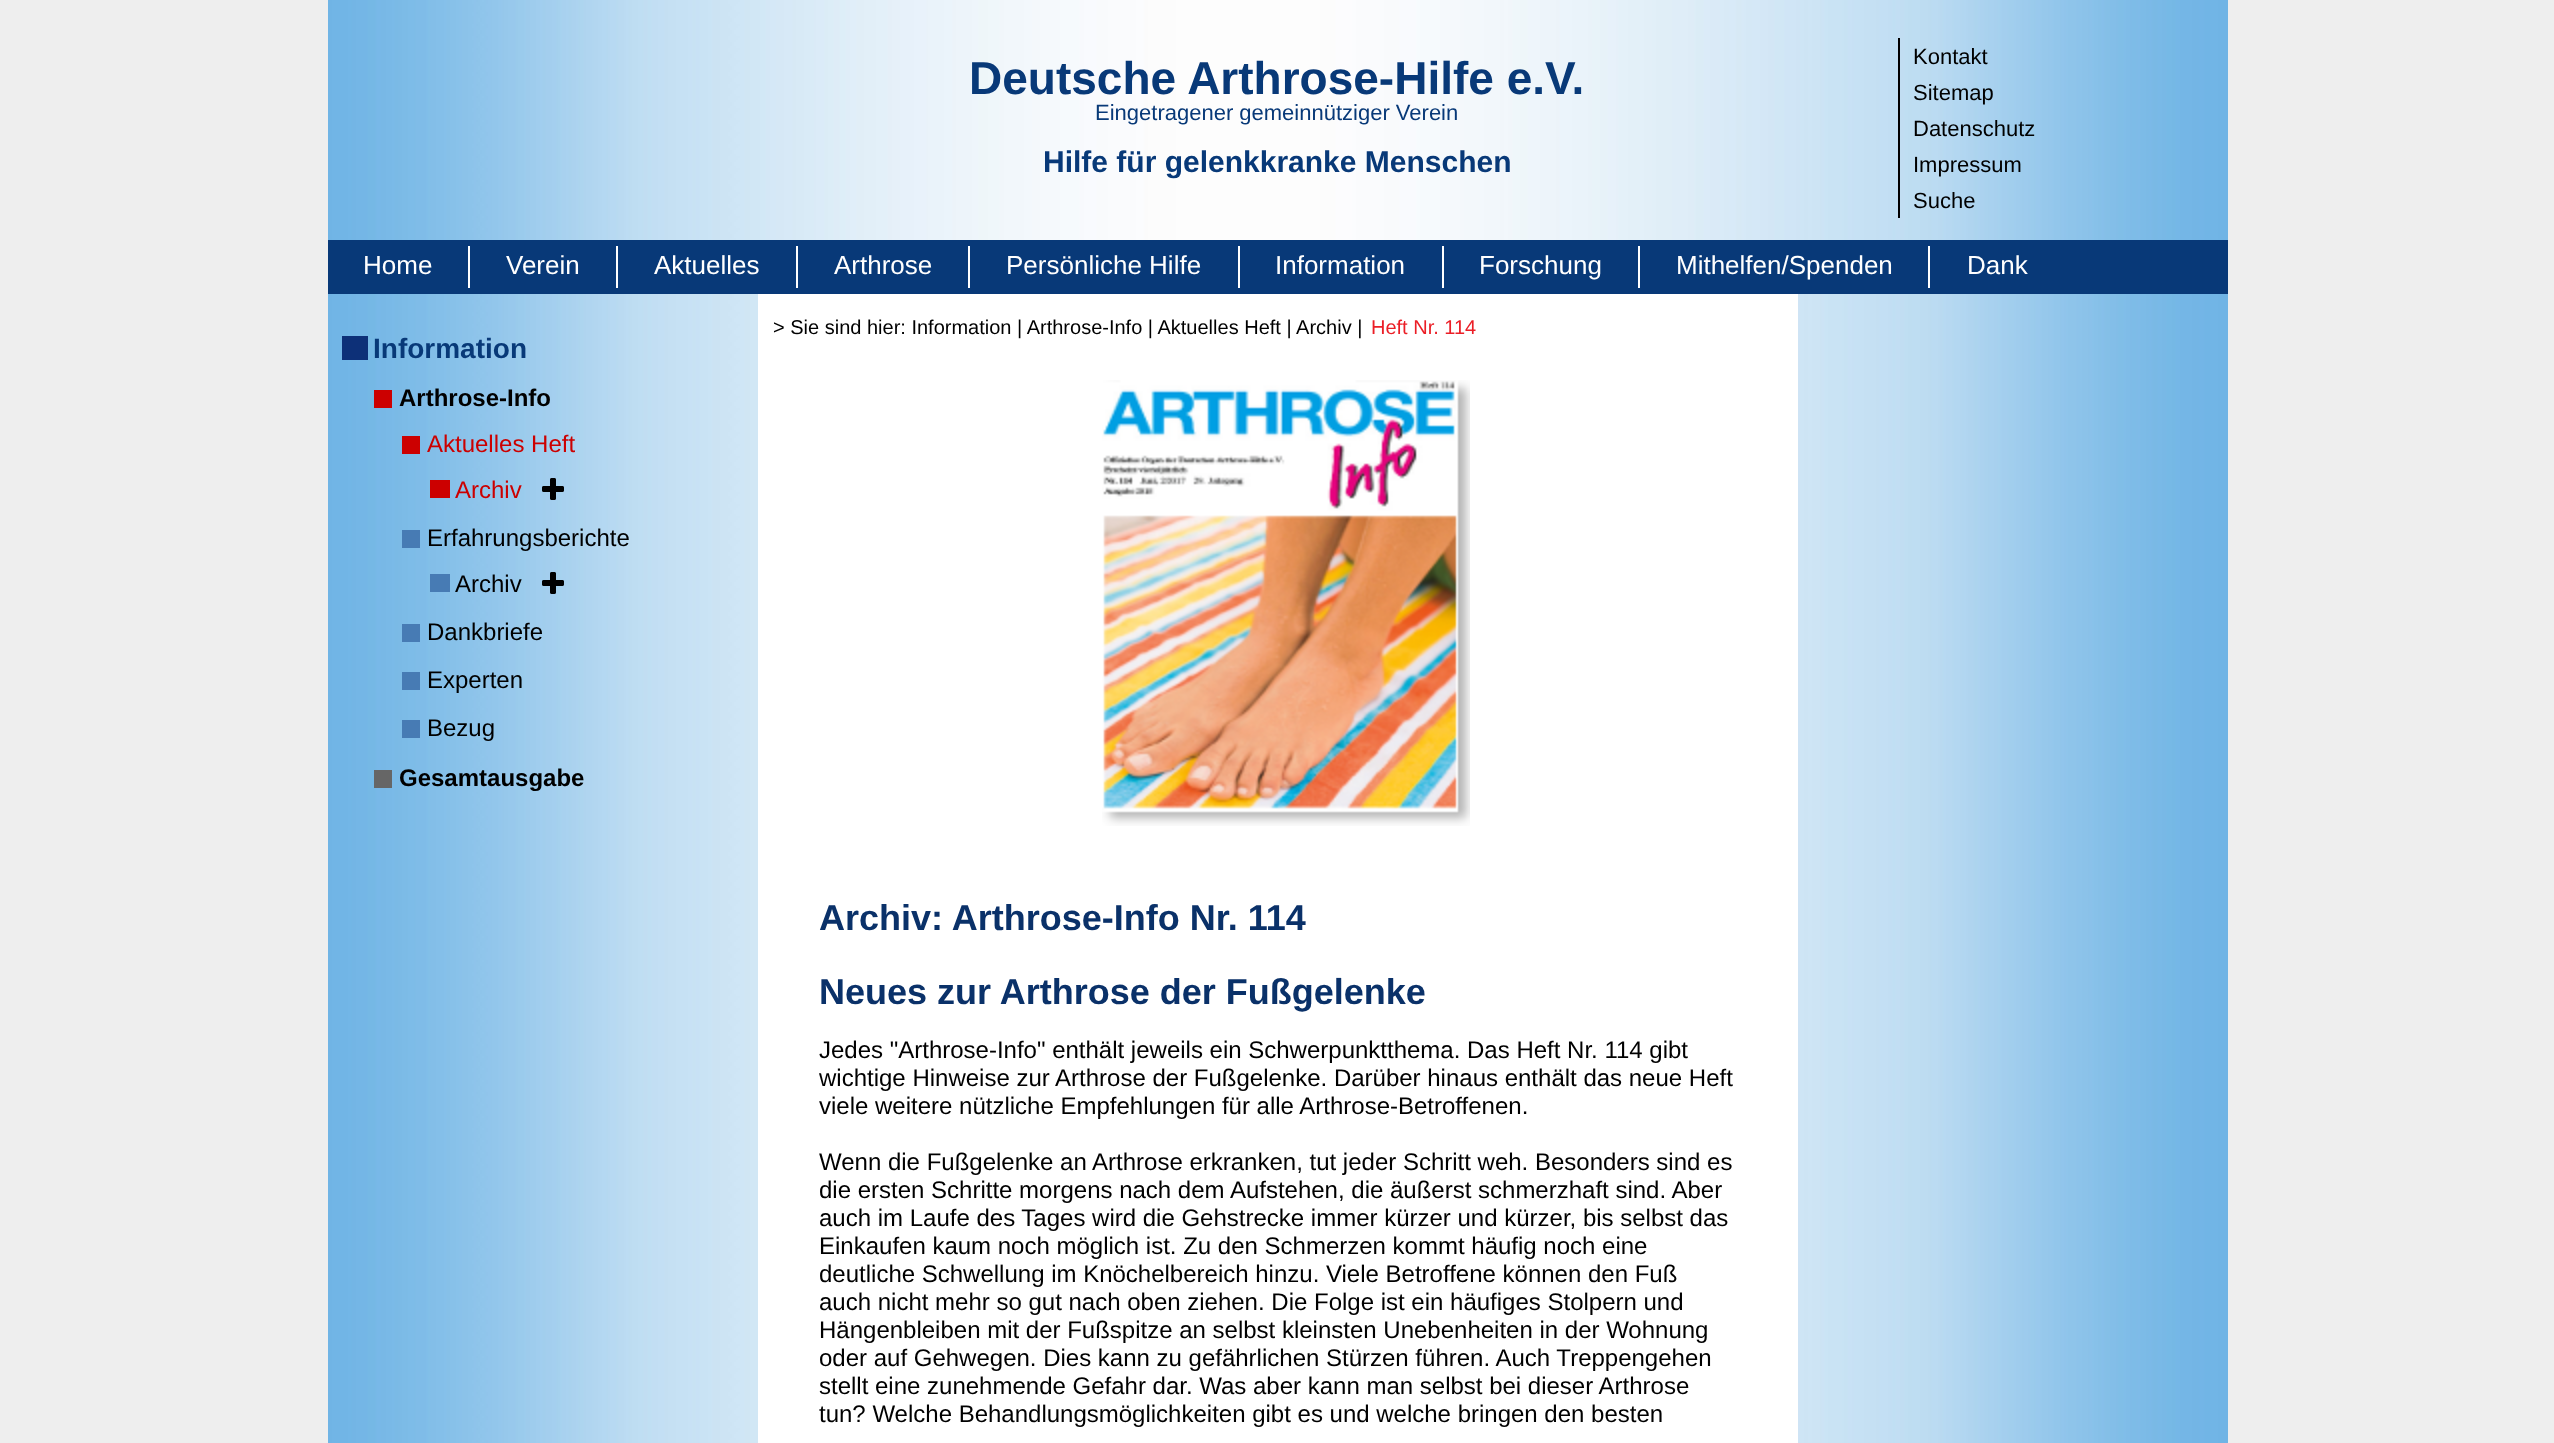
<?xml version="1.0" encoding="UTF-8"?>
<svg xmlns="http://www.w3.org/2000/svg" width="2554" height="1443">
    <rect width="100%" height="100%" fill="#EEEEEE"/>
    <image x="328" y="0" width="1900" height="1443" href="img_01.png"/>
    <text x="969" y="94" font-family="Liberation Sans" font-size="46" font-weight="700" fill="#083978">Deutsche Arthrose-Hilfe e.V.</text>
    <text x="1095" y="120" font-family="Liberation Sans" font-size="22" fill="#083978">Eingetragener gemeinnütziger Verein</text>
    <text x="1043" y="172" font-family="Liberation Sans" font-size="30" font-weight="700" fill="#083978">Hilfe für gelenkkranke Menschen</text>
    <rect x="1898" y="38" width="2" height="180" fill="#000000"/>
    <text font-family="Liberation Sans" font-size="22" fill="#000000">
        <tspan x="1913" y="64">Kontakt</tspan>
        <tspan x="1913" y="100">Sitemap</tspan>
        <tspan x="1913" y="136">Datenschutz</tspan>
        <tspan x="1913" y="172">Impressum</tspan>
        <tspan x="1913" y="208">Suche</tspan>
    </text>
    <rect x="328" y="240" width="1900" height="54" fill="#083978"/>
    <rect x="468" y="246" width="2" height="42" fill="#FFFFFF"/>
    <text x="363" y="274" font-family="Liberation Sans" font-size="26" fill="#FFFFFF">Home</text>
    <rect x="616" y="246" width="2" height="42" fill="#FFFFFF"/>
    <text x="506" y="274" font-family="Liberation Sans" font-size="26" fill="#FFFFFF">Verein</text>
    <rect x="796" y="246" width="2" height="42" fill="#FFFFFF"/>
    <text x="654" y="274" font-family="Liberation Sans" font-size="26" fill="#FFFFFF">Aktuelles</text>
    <rect x="968" y="246" width="2" height="42" fill="#FFFFFF"/>
    <text x="834" y="274" font-family="Liberation Sans" font-size="26" fill="#FFFFFF">Arthrose</text>
    <rect x="1238" y="246" width="2" height="42" fill="#FFFFFF"/>
    <text x="1006" y="274" font-family="Liberation Sans" font-size="26" fill="#FFFFFF">Persönliche Hilfe</text>
    <rect x="1442" y="246" width="2" height="42" fill="#FFFFFF"/>
    <text x="1275" y="274" font-family="Liberation Sans" font-size="26" fill="#FFFFFF">Information</text>
    <rect x="1638" y="246" width="2" height="42" fill="#FFFFFF"/>
    <text x="1479" y="274" font-family="Liberation Sans" font-size="26" fill="#FFFFFF">Forschung</text>
    <rect x="1928" y="246" width="2" height="42" fill="#FFFFFF"/>
    <text x="1676" y="274" font-family="Liberation Sans" font-size="26" fill="#FFFFFF">Mithelfen/Spenden</text>
    <text x="1967" y="274" font-family="Liberation Sans" font-size="26" fill="#FFFFFF">Dank</text>
    <rect x="342" y="336" width="26" height="24" fill="#0D3078"/>
    <text x="373" y="358" font-family="Liberation Sans" font-size="28" font-weight="700" fill="#083978">Information</text>
    <rect x="374" y="390" width="18" height="18" fill="#CC0000"/>
    <text x="399" y="406" font-family="Liberation Sans" font-size="24" font-weight="700" fill="#000000">Arthrose-Info</text>
    <rect x="402" y="436" width="18" height="18" fill="#CC0000"/>
    <text x="427" y="452" font-family="Liberation Sans" font-size="24" fill="#CC0000">Aktuelles Heft</text>
    <rect x="430" y="480" width="20" height="18" fill="#CC0000"/>
    <text x="455" y="498" font-family="Liberation Sans" font-size="24" fill="#CC0000">Archiv</text>
    <image x="542" y="478" width="22" height="22" href="img_02.png"/>
    <rect x="402" y="530" width="18" height="18" fill="#477BB4"/>
    <text x="427" y="546" font-family="Liberation Sans" font-size="24" fill="#000000">Erfahrungsberichte</text>
    <rect x="430" y="574" width="20" height="18" fill="#477BB4"/>
    <text x="455" y="592" font-family="Liberation Sans" font-size="24" fill="#000000">Archiv</text>
    <image x="542" y="572" width="22" height="22" href="img_02.png"/>
    <rect x="402" y="624" width="18" height="18" fill="#477BB4"/>
    <text x="427" y="640" font-family="Liberation Sans" font-size="24" fill="#000000">Dankbriefe</text>
    <rect x="402" y="672" width="18" height="18" fill="#477BB4"/>
    <text x="427" y="688" font-family="Liberation Sans" font-size="24" fill="#000000">Experten</text>
    <rect x="402" y="720" width="18" height="18" fill="#477BB4"/>
    <text x="427" y="736" font-family="Liberation Sans" font-size="24" fill="#000000">Bezug</text>
    <rect x="374" y="770" width="18" height="18" fill="#666666"/>
    <text x="399" y="786" font-family="Liberation Sans" font-size="24" font-weight="700" fill="#000000">Gesamtausgabe</text>
    <rect x="758" y="294" width="1040" height="1149" fill="#FFFFFF"/>
    <text x="773" y="334" font-family="Liberation Sans" font-size="20" fill="#000000">&gt; Sie sind hier: Information | Arthrose-Info | Aktuelles Heft | Archiv |</text>
    <text x="1371" y="334" font-family="Liberation Sans" font-size="20" fill="#EB1E26">Heft Nr. 114</text>
    <image x="1102" y="380" width="368" height="446" href="img_03.png"/>
    <text x="819" y="930" font-family="Liberation Sans" font-size="36" font-weight="700" fill="#0A3169">Archiv: Arthrose-Info Nr. 114</text>
    <text x="819" y="1004" font-family="Liberation Sans" font-size="36" font-weight="700" fill="#0A3169">Neues zur Arthrose der Fußgelenke</text>
    <text font-family="Liberation Sans" font-size="24" fill="#000000">
        <tspan x="819" y="1058">Jedes "Arthrose-Info" enthält jeweils ein Schwerpunktthema. Das Heft Nr. 114 gibt</tspan>
        <tspan x="819" y="1086">wichtige Hinweise zur Arthrose der Fußgelenke. Darüber hinaus enthält das neue Heft</tspan>
        <tspan x="819" y="1114">viele weitere nützliche Empfehlungen für alle Arthrose-Betroffenen.</tspan>
    </text>
    <text font-family="Liberation Sans" font-size="24" fill="#000000">
        <tspan x="819" y="1170">Wenn die Fußgelenke an Arthrose erkranken, tut jeder Schritt weh. Besonders sind es</tspan>
        <tspan x="819" y="1198">die ersten Schritte morgens nach dem Aufstehen, die äußerst schmerzhaft sind. Aber</tspan>
        <tspan x="819" y="1226">auch im Laufe des Tages wird die Gehstrecke immer kürzer und kürzer, bis selbst das</tspan>
        <tspan x="819" y="1254">Einkaufen kaum noch möglich ist. Zu den Schmerzen kommt häufig noch eine</tspan>
        <tspan x="819" y="1282">deutliche Schwellung im Knöchelbereich hinzu. Viele Betroffene können den Fuß</tspan>
        <tspan x="819" y="1310">auch nicht mehr so gut nach oben ziehen. Die Folge ist ein häufiges Stolpern und</tspan>
        <tspan x="819" y="1338">Hängenbleiben mit der Fußspitze an selbst kleinsten Unebenheiten in der Wohnung</tspan>
        <tspan x="819" y="1366">oder auf Gehwegen. Dies kann zu gefährlichen Stürzen führen. Auch Treppengehen</tspan>
        <tspan x="819" y="1394">stellt eine zunehmende Gefahr dar. Was aber kann man selbst bei dieser Arthrose</tspan>
        <tspan x="819" y="1422">tun? Welche Behandlungsmöglichkeiten gibt es und welche bringen den besten</tspan>
    </text>
</svg>
